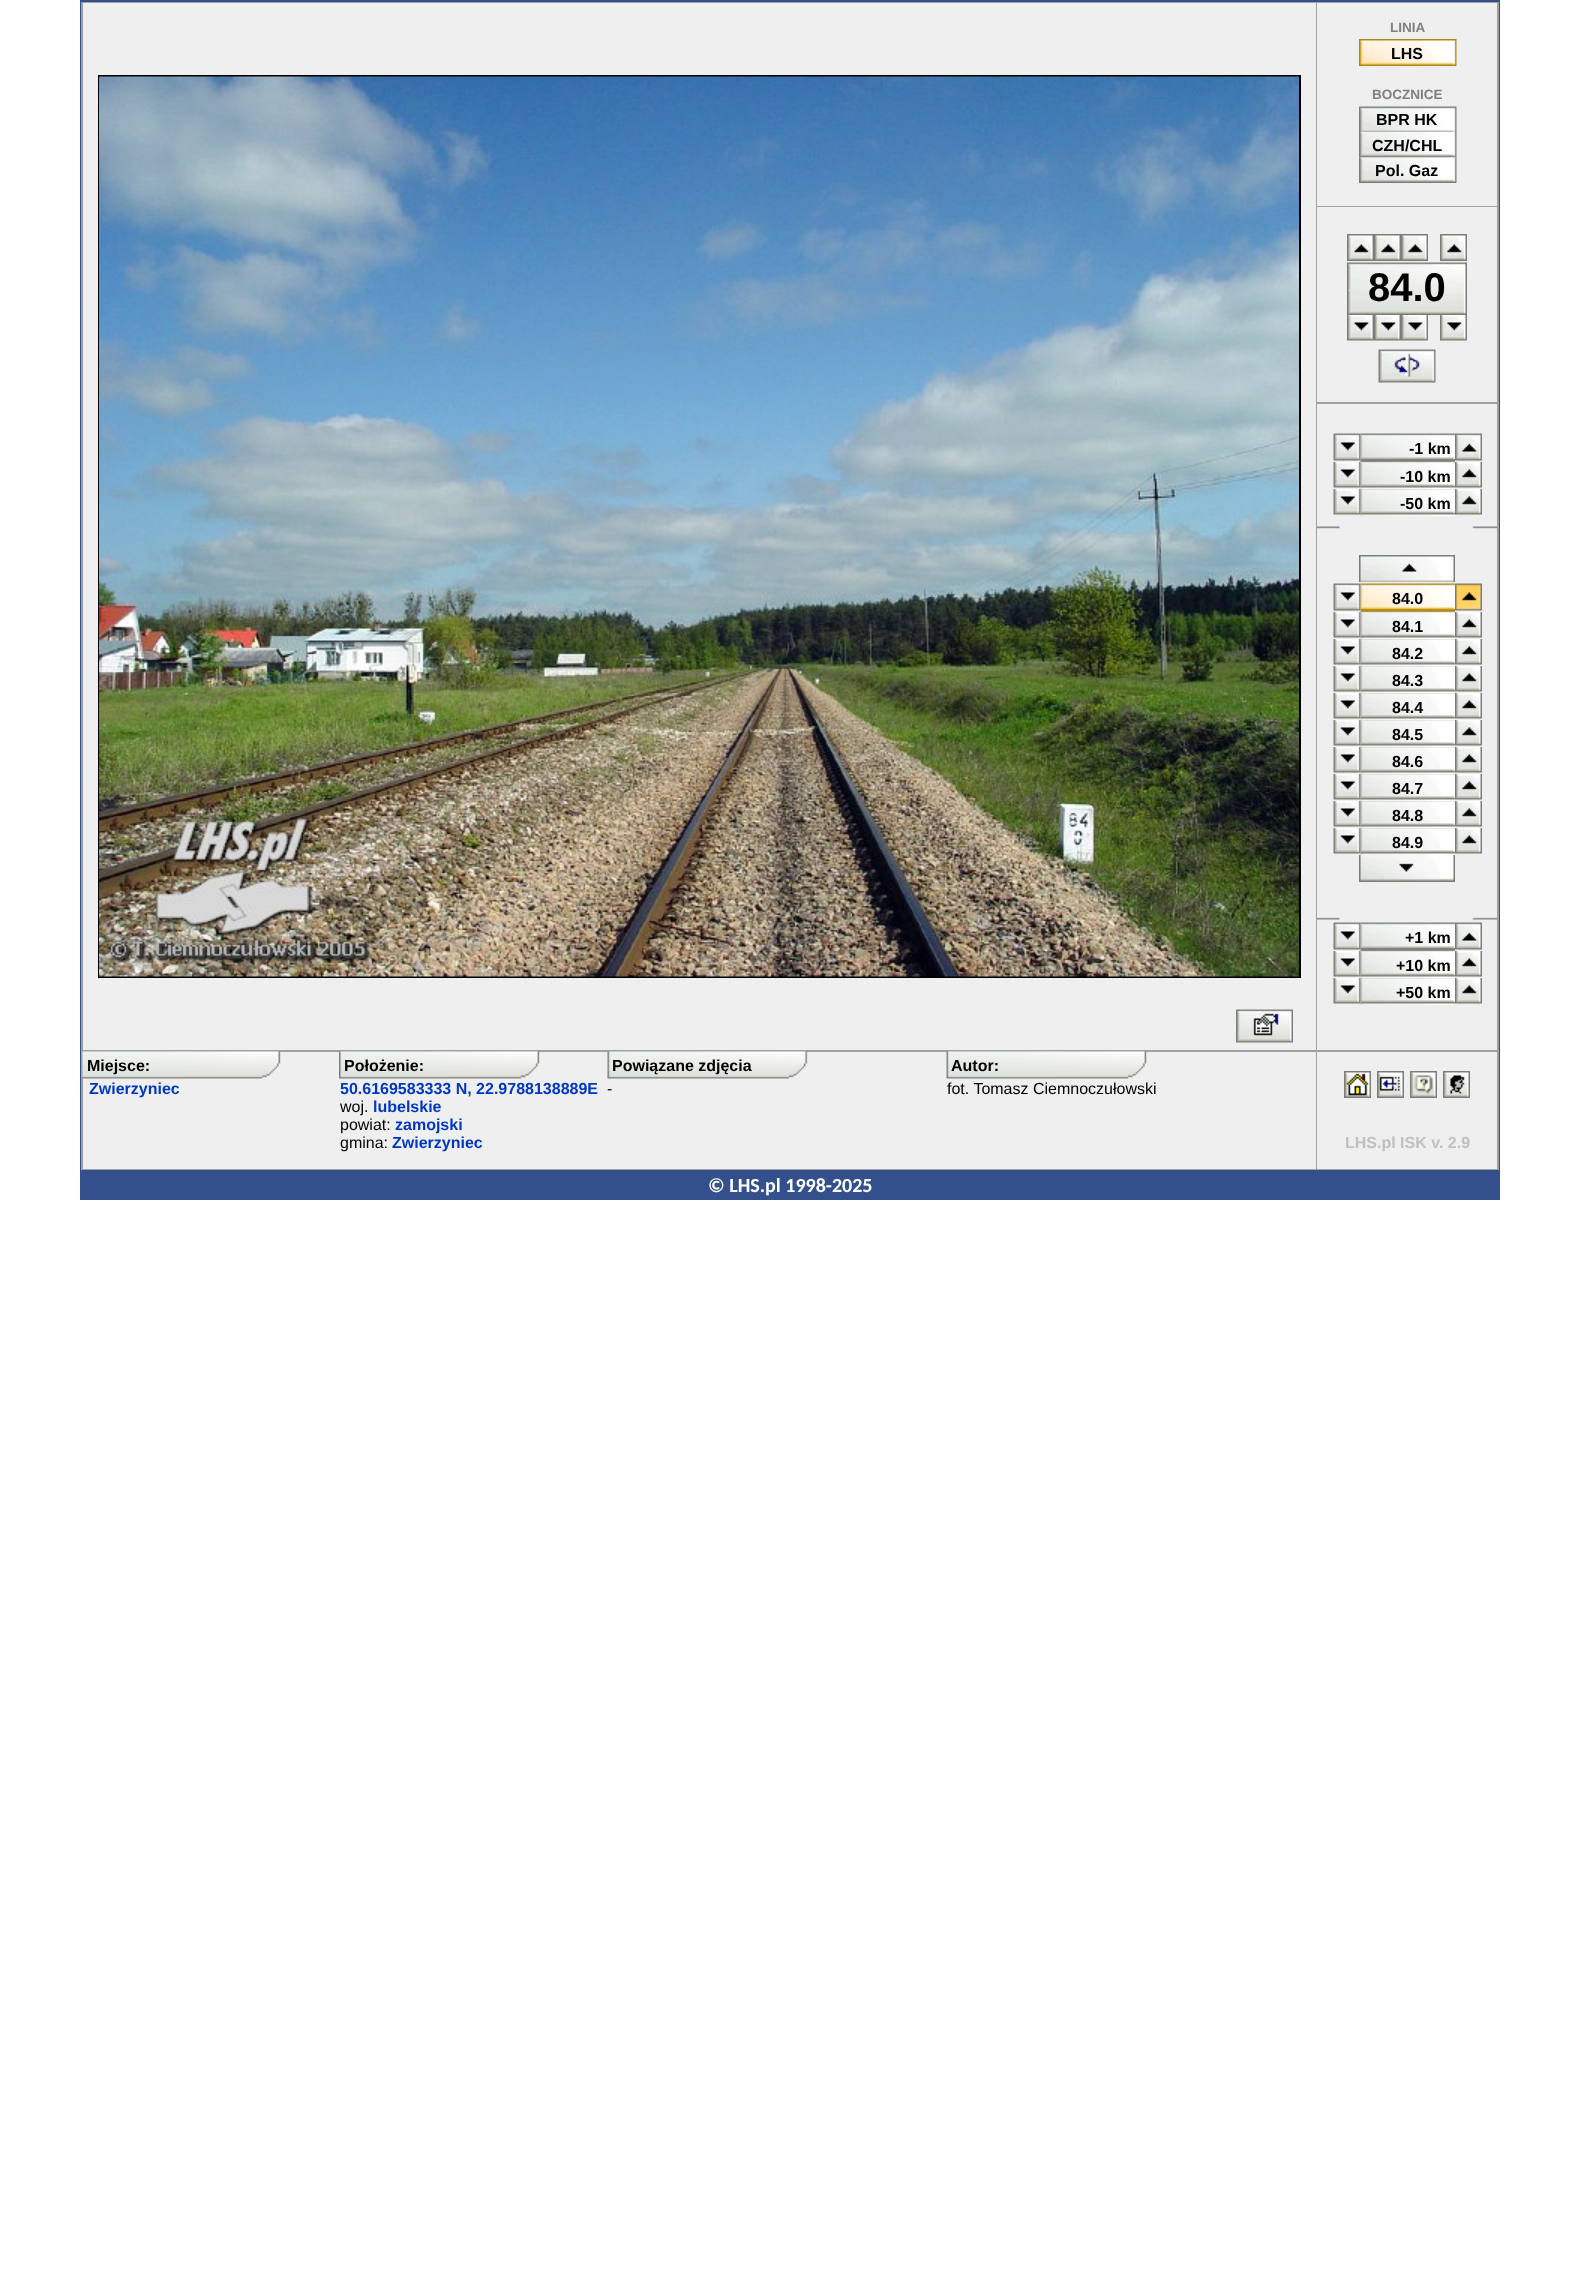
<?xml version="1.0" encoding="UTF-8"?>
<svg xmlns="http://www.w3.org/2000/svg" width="1579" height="2282">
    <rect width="100%" height="100%" fill="#FFFFFF"/>
    <rect x="80" y="0" width="1420" height="1200" fill="#34508C"/>
    <rect x="81" y="2" width="1418" height="1168" fill="#A0A0A0"/>
    <rect x="83" y="3" width="1233" height="1047" fill="#EFEFEF"/>
    <rect x="99" y="76" width="1201" height="901" fill="none" stroke="#000000" stroke-width="2"/>
    <image x="99" y="76" width="1200" height="901" href="img_01.png"/>
    <rect x="1317" y="3" width="180" height="203" fill="#EFEFEF"/>
    <text x="1390" y="32" font-family="Liberation Sans" font-size="13.5" font-weight="700" fill="#808080">LINIA</text>
    <image x="1359" y="39" width="98" height="27" href="img_02.png"/>
    <text x="1391" y="59" font-family="Liberation Sans" font-size="16" font-weight="700" fill="#000000">LHS</text>
    <text x="1372" y="99" font-family="Liberation Sans" font-size="13.5" font-weight="700" fill="#808080">BOCZNICE</text>
    <image x="1359" y="106" width="98" height="26" href="img_03.png"/>
    <text x="1376" y="125" font-family="Liberation Sans" font-size="16" font-weight="700" fill="#000000">BPR HK</text>
    <image x="1359" y="132" width="98" height="26" href="img_04.png"/>
    <text x="1372" y="151" font-family="Liberation Sans" font-size="16" font-weight="700" fill="#000000">CZH/CHL</text>
    <image x="1359" y="157" width="98" height="26" href="img_05.png"/>
    <text x="1375" y="176" font-family="Liberation Sans" font-size="16" font-weight="700" fill="#000000">Pol. Gaz</text>
    <rect x="1317" y="207" width="180" height="195" fill="#EFEFEF"/>
    <image x="1347" y="234" width="27" height="27" href="img_06.png"/>
    <image x="1374" y="234" width="27" height="27" href="img_07.png"/>
    <image x="1401" y="234" width="27" height="27" href="img_07.png"/>
    <image x="1440" y="234" width="27" height="27" href="img_07.png"/>
    <image x="1347" y="262" width="120" height="53" href="img_08.png"/>
    <text x="1368" y="301" font-family="Liberation Sans" font-size="40" font-weight="700" fill="#000000">84.0</text>
    <image x="1347" y="315" width="27" height="26" href="img_09.png"/>
    <image x="1374" y="315" width="27" height="26" href="img_10.png"/>
    <image x="1401" y="315" width="27" height="26" href="img_10.png"/>
    <image x="1440" y="315" width="27" height="26" href="img_10.png"/>
    <image x="1378" y="349" width="58" height="34" href="img_11.png"/>
    <rect x="1317" y="404" width="180" height="646" fill="#EFEFEF"/>
    <image x="1360" y="433" width="95" height="29" href="img_13.png"/>
    <image x="1333" y="433" width="28" height="28" href="img_12.png"/>
    <text x="1409" y="454" font-family="Liberation Sans" font-size="16" font-weight="700" fill="#000000">-1 km</text>
    <image x="1455" y="433" width="27" height="28" href="img_14.png"/>
    <image x="1360" y="462" width="95" height="27" href="img_16.png"/>
    <image x="1333" y="462" width="28" height="26" href="img_15.png"/>
    <text x="1400" y="482" font-family="Liberation Sans" font-size="16" font-weight="700" fill="#000000">-10 km</text>
    <image x="1455" y="462" width="27" height="26" href="img_17.png"/>
    <image x="1360" y="489" width="95" height="27" href="img_16.png"/>
    <image x="1333" y="489" width="28" height="26" href="img_15.png"/>
    <text x="1400" y="509" font-family="Liberation Sans" font-size="16" font-weight="700" fill="#000000">-50 km</text>
    <image x="1455" y="489" width="27" height="26" href="img_17.png"/>
    <image x="1317" y="526" width="180" height="3" href="img_18.png"/>
    <image x="1359" y="555" width="96" height="27" href="img_19.png"/>
    <image x="1360" y="583" width="95" height="29" href="img_21.png"/>
    <image x="1333" y="583" width="28" height="28" href="img_20.png"/>
    <text x="1392" y="604" font-family="Liberation Sans" font-size="16" font-weight="700" fill="#000000">84.0</text>
    <image x="1455" y="583" width="27" height="28" href="img_22.png"/>
    <image x="1360" y="612" width="95" height="27" href="img_16.png"/>
    <image x="1333" y="612" width="28" height="26" href="img_15.png"/>
    <text x="1392" y="632" font-family="Liberation Sans" font-size="16" font-weight="700" fill="#000000">84.1</text>
    <image x="1455" y="612" width="27" height="26" href="img_17.png"/>
    <image x="1360" y="639" width="95" height="27" href="img_23.png"/>
    <image x="1333" y="639" width="28" height="26" href="img_15.png"/>
    <text x="1392" y="659" font-family="Liberation Sans" font-size="16" font-weight="700" fill="#000000">84.2</text>
    <image x="1455" y="639" width="27" height="26" href="img_17.png"/>
    <image x="1360" y="666" width="95" height="27" href="img_24.png"/>
    <image x="1333" y="666" width="28" height="26" href="img_15.png"/>
    <text x="1392" y="686" font-family="Liberation Sans" font-size="16" font-weight="700" fill="#000000">84.3</text>
    <image x="1455" y="666" width="27" height="26" href="img_17.png"/>
    <image x="1360" y="693" width="95" height="27" href="img_25.png"/>
    <image x="1333" y="693" width="28" height="26" href="img_15.png"/>
    <text x="1392" y="713" font-family="Liberation Sans" font-size="16" font-weight="700" fill="#000000">84.4</text>
    <image x="1455" y="693" width="27" height="26" href="img_17.png"/>
    <image x="1360" y="720" width="95" height="27" href="img_26.png"/>
    <image x="1333" y="720" width="28" height="26" href="img_15.png"/>
    <text x="1392" y="740" font-family="Liberation Sans" font-size="16" font-weight="700" fill="#000000">84.5</text>
    <image x="1455" y="720" width="27" height="26" href="img_17.png"/>
    <image x="1360" y="747" width="95" height="27" href="img_16.png"/>
    <image x="1333" y="747" width="28" height="26" href="img_15.png"/>
    <text x="1392" y="767" font-family="Liberation Sans" font-size="16" font-weight="700" fill="#000000">84.6</text>
    <image x="1455" y="747" width="27" height="26" href="img_17.png"/>
    <image x="1360" y="774" width="95" height="27" href="img_23.png"/>
    <image x="1333" y="774" width="28" height="26" href="img_15.png"/>
    <text x="1392" y="794" font-family="Liberation Sans" font-size="16" font-weight="700" fill="#000000">84.7</text>
    <image x="1455" y="774" width="27" height="26" href="img_17.png"/>
    <image x="1360" y="801" width="95" height="27" href="img_24.png"/>
    <image x="1333" y="801" width="28" height="26" href="img_15.png"/>
    <text x="1392" y="821" font-family="Liberation Sans" font-size="16" font-weight="700" fill="#000000">84.8</text>
    <image x="1455" y="801" width="27" height="26" href="img_17.png"/>
    <image x="1360" y="828" width="95" height="27" href="img_25.png"/>
    <image x="1333" y="828" width="28" height="26" href="img_15.png"/>
    <text x="1392" y="848" font-family="Liberation Sans" font-size="16" font-weight="700" fill="#000000">84.9</text>
    <image x="1455" y="828" width="27" height="26" href="img_17.png"/>
    <image x="1359" y="855" width="96" height="27" href="img_27.png"/>
    <image x="1317" y="917" width="180" height="3" href="img_28.png"/>
    <image x="1360" y="922" width="95" height="29" href="img_29.png"/>
    <image x="1333" y="922" width="28" height="28" href="img_12.png"/>
    <text x="1405" y="943" font-family="Liberation Sans" font-size="16" font-weight="700" fill="#000000">+1 km</text>
    <image x="1455" y="922" width="27" height="28" href="img_14.png"/>
    <image x="1360" y="951" width="95" height="27" href="img_25.png"/>
    <image x="1333" y="951" width="28" height="26" href="img_15.png"/>
    <text x="1396" y="971" font-family="Liberation Sans" font-size="16" font-weight="700" fill="#000000">+10 km</text>
    <image x="1455" y="951" width="27" height="26" href="img_17.png"/>
    <image x="1360" y="978" width="95" height="27" href="img_25.png"/>
    <image x="1333" y="978" width="28" height="26" href="img_15.png"/>
    <text x="1396" y="998" font-family="Liberation Sans" font-size="16" font-weight="700" fill="#000000">+50 km</text>
    <image x="1455" y="978" width="27" height="26" href="img_17.png"/>
    <rect x="83" y="1052" width="1233" height="117" fill="#EFEFEF"/>
    <image x="82" y="1051" width="199" height="28" href="img_30.png"/>
    <text x="87" y="1071" font-family="Liberation Sans" font-size="16" font-weight="700" fill="#000000">Miejsce:</text>
    <image x="339" y="1051" width="201" height="28" href="img_31.png"/>
    <text x="344" y="1071" font-family="Liberation Sans" font-size="16" font-weight="700" fill="#000000">Położenie:</text>
    <image x="607" y="1051" width="201" height="28" href="img_32.png"/>
    <text x="612" y="1071" font-family="Liberation Sans" font-size="16" font-weight="700" fill="#000000">Powiązane zdjęcia</text>
    <image x="946" y="1051" width="201" height="28" href="img_33.png"/>
    <text x="951" y="1071" font-family="Liberation Sans" font-size="16" font-weight="700" fill="#000000">Autor:</text>
    <image x="1236" y="1009" width="57" height="34" href="img_34.png"/>
    <text x="89" y="1094" font-family="Liberation Sans" font-size="16" font-weight="700" fill="#0038C3">Zwierzyniec</text>
    <text x="340" y="1094" font-family="Liberation Sans" font-size="16" font-weight="700" fill="#0038C3">50.6169583333 N, 22.9788138889E</text>
    <text x="340" y="1112" font-family="Liberation Sans" font-size="16" fill="#000000">woj.</text>
    <text x="373" y="1112" font-family="Liberation Sans" font-size="16" font-weight="700" fill="#0038C3">lubelskie</text>
    <text x="340" y="1130" font-family="Liberation Sans" font-size="16" fill="#000000">powiat:</text>
    <text x="395" y="1130" font-family="Liberation Sans" font-size="16" font-weight="700" fill="#0038C3">zamojski</text>
    <text x="340" y="1148" font-family="Liberation Sans" font-size="16" fill="#000000">gmina:</text>
    <text x="392" y="1148" font-family="Liberation Sans" font-size="16" font-weight="700" fill="#0038C3">Zwierzyniec</text>
    <text x="607" y="1094" font-family="Liberation Sans" font-size="16" fill="#000000">-</text>
    <text x="947" y="1094" font-family="Liberation Sans" font-size="16" fill="#000000">fot. Tomasz Ciemnoczułowski</text>
    <rect x="1317" y="1052" width="180" height="117" fill="#EFEFEF"/>
    <image x="1344" y="1071" width="27" height="27" href="img_35.png"/>
    <image x="1377" y="1071" width="27" height="27" href="img_36.png"/>
    <image x="1410" y="1071" width="27" height="27" href="img_37.png"/>
    <image x="1443" y="1071" width="27" height="27" href="img_38.png"/>
    <text x="1345" y="1148" font-family="Liberation Sans" font-size="16" font-weight="700" fill="#C0C0C0">LHS.pl ISK v. 2.9</text>
    <text x="708" y="1192" font-family="Carlito" font-size="20" font-weight="700" fill="#FFFFFF">© LHS.pl 1998-2025</text>
</svg>
